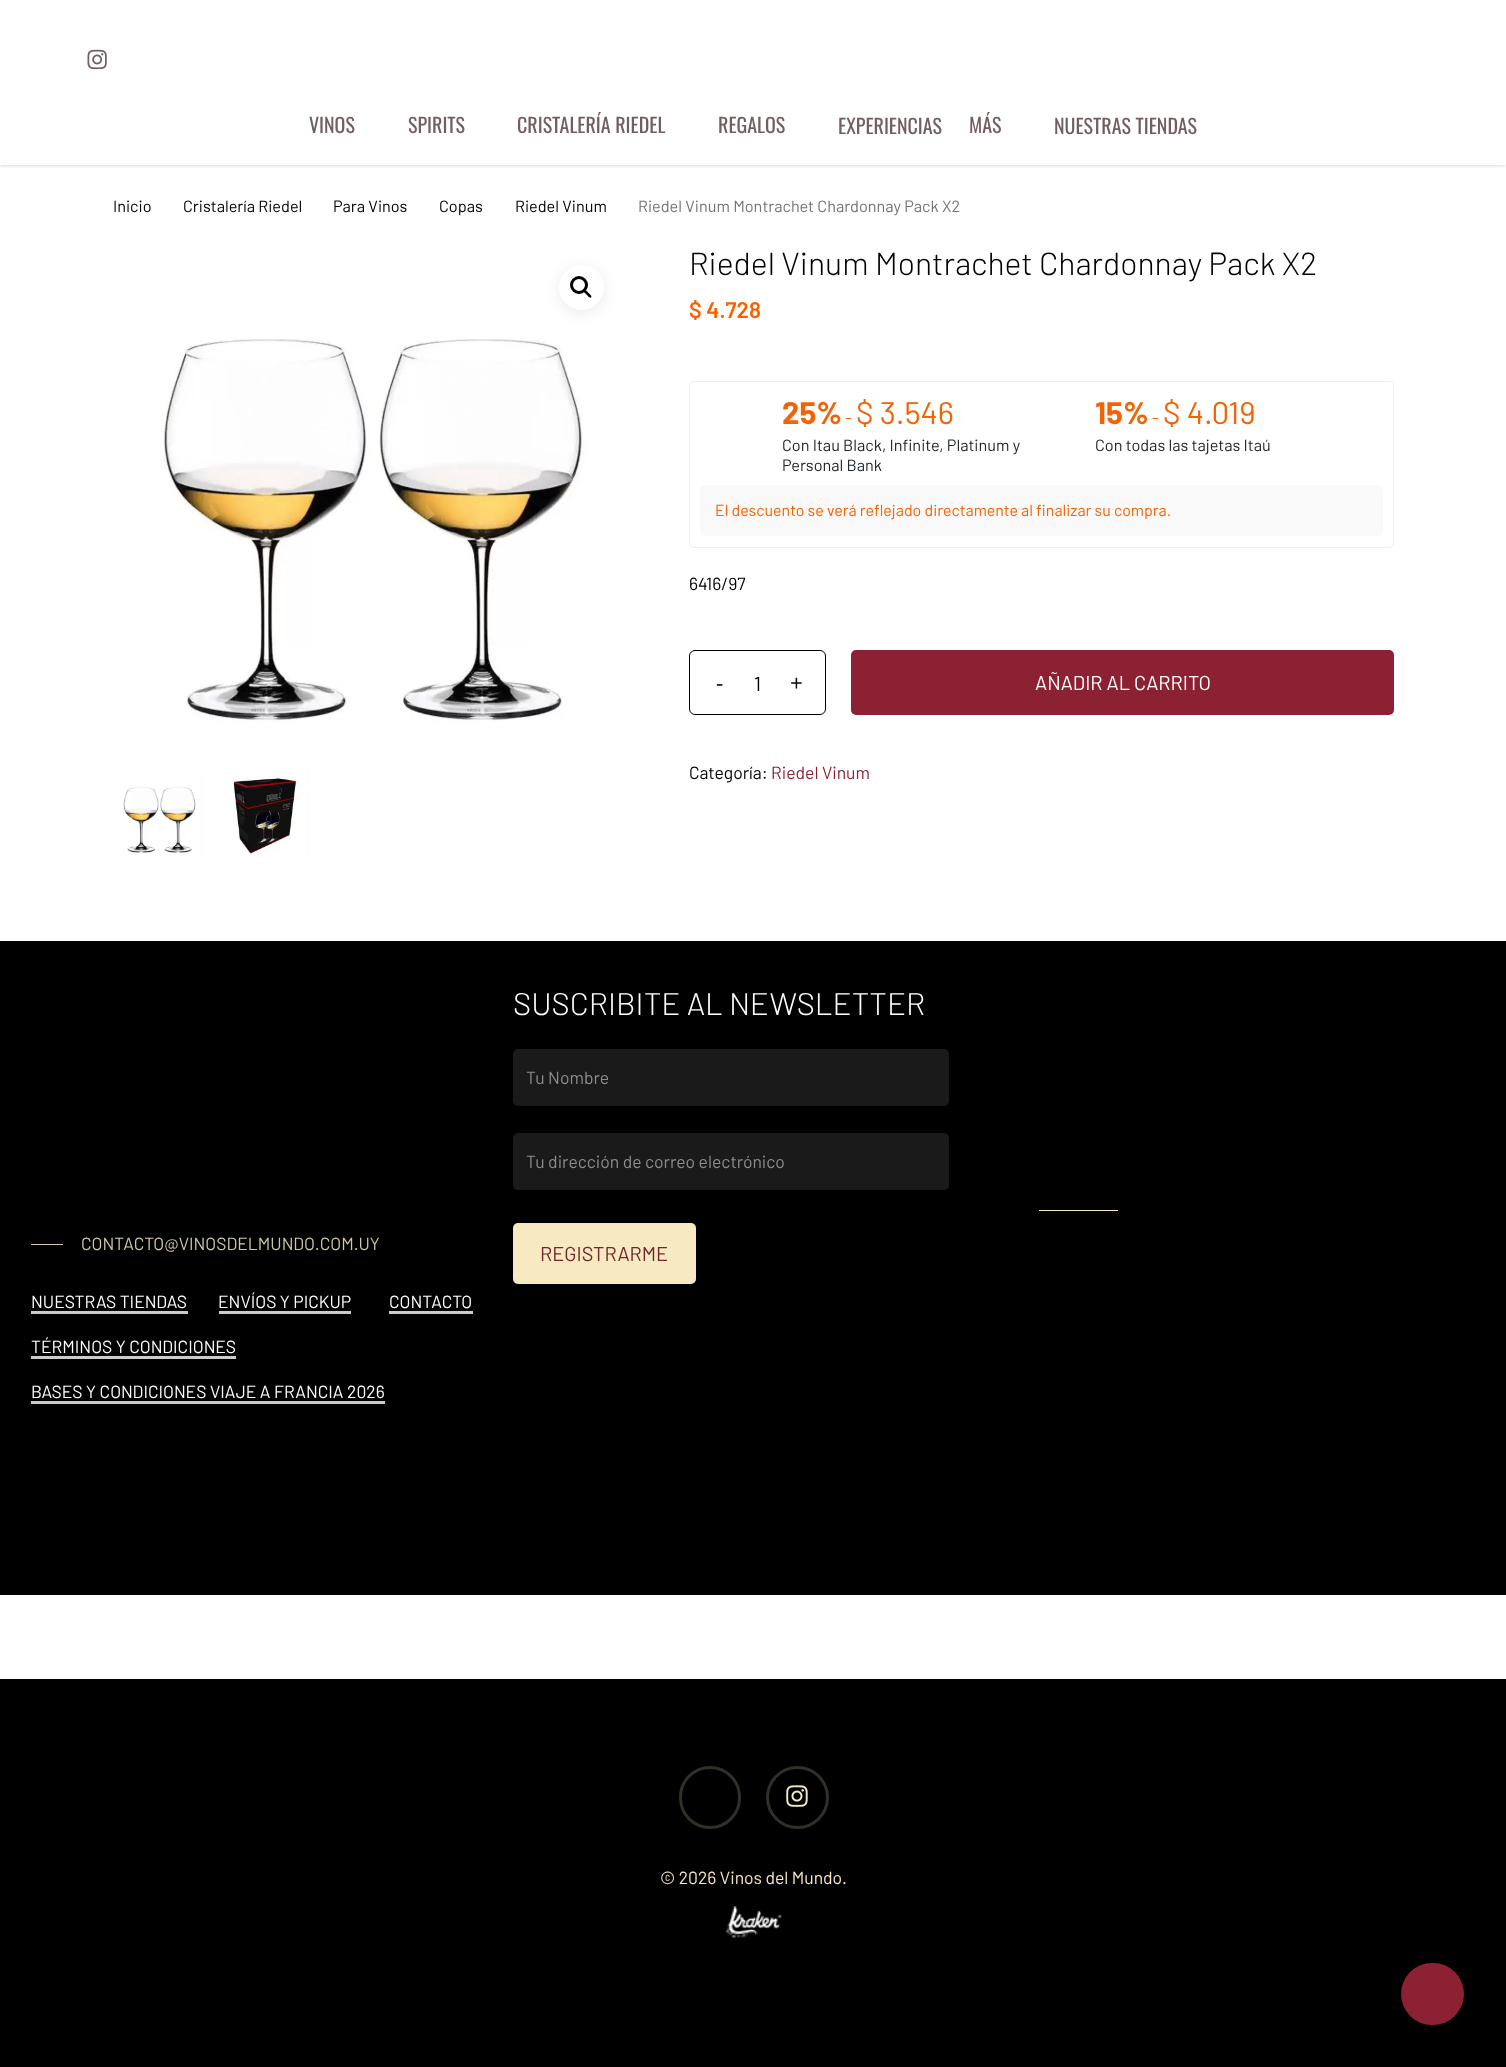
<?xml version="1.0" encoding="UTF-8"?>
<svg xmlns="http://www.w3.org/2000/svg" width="1506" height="2067">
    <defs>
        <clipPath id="clip1"><rect x="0" y="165" width="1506" height="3"/></clipPath>
        <filter id="blur1" x="-50%" y="-200%" width="200%" height="500%"><feGaussianBlur stdDeviation="2"/></filter>
        <filter id="blur2" x="-50%" y="-200%" width="200%" height="500%"><feGaussianBlur stdDeviation="7.5"/></filter>
    </defs>
    <rect width="100%" height="100%" fill="#FFFFFF"/>
    <g clip-path="url(#clip1)">
        <rect x="0" y="0" width="1506" height="165" fill="#000000" fill-opacity="0.22" filter="url(#blur1)"/>
    </g>
    <image x="87" y="49" width="20" height="21" href="img_01.png"/>
    <text x="309" y="133" font-family="Oswald" font-size="20" fill="#725E61">VINOS</text>
    <text x="408" y="133" font-family="Oswald" font-size="20" fill="#725E61">SPIRITS</text>
    <text x="517" y="133" font-family="Oswald" font-size="20" fill="#725E61">CRISTALERÍA RIEDEL</text>
    <text x="718" y="133" font-family="Oswald" font-size="20" fill="#725E61">REGALOS</text>
    <text x="838" y="134" font-family="Oswald" font-size="20" fill="#725E61">EXPERIENCIAS</text>
    <text x="969" y="133" font-family="Oswald" font-size="20" fill="#725E61">MÁS</text>
    <text x="1054" y="134" font-family="Oswald" font-size="20" fill="#725E61">NUESTRAS TIENDAS</text>
    <text x="113" y="212" font-family="Barlow" font-size="16.25" fill="#000000">Inicio</text>
    <text x="183" y="212" font-family="Barlow" font-size="16.25" fill="#000000">Cristalería Riedel</text>
    <text x="333" y="212" font-family="Barlow" font-size="16.25" fill="#000000">Para Vinos</text>
    <text x="439" y="212" font-family="Barlow" font-size="16.25" fill="#000000">Copas</text>
    <text x="515" y="212" font-family="Barlow" font-size="16.25" fill="#000000">Riedel Vinum</text>
    <text x="638" y="212" font-family="Barlow" font-size="16.25" fill="#737373">Riedel Vinum Montrachet Chardonnay Pack X2</text>
    <image x="113" y="244" width="512" height="512" href="img_02.png"/>
    <rect x="559" y="268" width="45" height="45" rx="22.5" fill="#000000" fill-opacity="0.08" filter="url(#blur2)"/>
    <circle cx="581.5" cy="287.5" r="22.5" fill="#FFFFFF"/>
    <circle cx="579" cy="285" r="7.5" fill="none" stroke="#000000" stroke-width="3"/>
    <path d="M 584 290 C 585.5 289 587.5 292 588.5 293 C 589 293.5 592.5 296 591 297.5 C 589.5 298.5 587.5 295.5 586.5 294.5 C 586 294 582.5 291.5 584 290 Z" fill="#000000"/>
    <rect x="115" y="771" width="88" height="88" fill="#F6F6F6"/>
    <image x="115" y="771" width="88" height="88" href="img_03.png"/>
    <rect x="220" y="771" width="88" height="88" fill="#F6F6F6"/>
    <image x="220" y="771" width="88" height="88" href="img_04.png"/>
    <text x="689" y="275" font-family="Barlow" font-size="31.9" font-weight="300" fill="#000000">Riedel Vinum Montrachet Chardonnay Pack X2</text>
    <text x="689" y="318" font-family="Barlow" font-size="22.5" font-weight="600" fill="#F56204">$ 4.728</text>
    <rect x="689.5" y="381.5" width="704" height="166" rx="4.5" fill="none" stroke="#EEEEEE"/>
    <text x="782" y="424" font-family="Barlow" font-size="31.25" font-weight="700" fill="#F56204">25%</text>
    <text x="845" y="424" font-family="Barlow" font-size="17.5" fill="#F56204">-</text>
    <text x="856" y="424" font-family="Barlow" font-size="31.25" fill="#F56204">$ 3.546</text>
    <text font-family="Barlow" font-size="16.25" fill="#1D2327">
        <tspan x="782" y="451">Con Itau Black, Infinite, Platinum y</tspan>
        <tspan x="782" y="471">Personal Bank</tspan>
    </text>
    <text x="1095" y="424" font-family="Barlow" font-size="31.25" font-weight="700" fill="#F56204">15%</text>
    <text x="1152" y="424" font-family="Barlow" font-size="17.5" fill="#F56204">-</text>
    <text x="1163" y="424" font-family="Barlow" font-size="31.25" fill="#F56204">$ 4.019</text>
    <text x="1095" y="451" font-family="Barlow" font-size="16.25" fill="#1D2327">Con todas las tajetas Itaú</text>
    <rect x="700" y="485" width="683" height="51" rx="5" fill="#F9F9F9"/>
    <text x="715" y="516" font-family="Barlow" font-size="15.95" fill="#F56204">El descuento se verá reflejado directamente al finalizar su compra.</text>
    <text x="689" y="590" font-family="Barlow" font-size="17.5" fill="#000000">6416/97</text>
    <rect x="689.5" y="650.5" width="136" height="64" rx="5.5" fill="none" stroke="#000000"/>
    <text x="716" y="691" font-family="Open Sans" font-size="22.5" fill="#000000">-</text>
    <text x="754" y="691" font-family="Barlow" font-size="20" fill="#000000">1</text>
    <text x="790" y="691" font-family="Open Sans" font-size="22.5" fill="#000000">+</text>
    <rect x="851" y="650" width="543" height="65" rx="5" fill="#8D2134"/>
    <text x="1035" y="690" font-family="Barlow" font-size="20" fill="#FFFFFF">AÑADIR AL CARRITO</text>
    <text x="689" y="779" font-family="Barlow" font-size="17.5" fill="#000000">Categoría:</text>
    <text x="771" y="779" font-family="Barlow" font-size="17.5" fill="#8D2134">Riedel Vinum</text>
    <rect x="0" y="941" width="1506" height="654" fill="#000000"/>
    <text x="513" y="1015" font-family="Barlow" font-size="31.25" font-weight="300" fill="#FFFFFF">SUSCRIBITE AL NEWSLETTER</text>
    <rect x="513" y="1049" width="436" height="57" rx="5" fill="#1A1A1A"/>
    <text x="526" y="1084" font-family="Barlow" font-size="17.5" fill="#8D8D8D">Tu Nombre</text>
    <rect x="513" y="1133" width="436" height="57" rx="5" fill="#1A1A1A"/>
    <text x="526" y="1168" font-family="Barlow" font-size="17.5" fill="#8D8D8D">Tu dirección de correo electrónico</text>
    <rect x="513" y="1223" width="183" height="61" rx="5" fill="#F7EAC1"/>
    <text x="540" y="1261" font-family="Barlow" font-size="20" fill="#722530">REGISTRARME</text>
    <rect x="1039" y="1210" width="79" height="1" fill="#F7EAC1"/>
    <rect x="31" y="1244" width="32" height="1" fill="#D2C7A4"/>
    <text x="81" y="1250" font-family="Barlow" font-size="17.5" fill="#D2C7A4">CONTACTO@VINOSDELMUNDO.COM.UY</text>
    <text x="31" y="1308" font-family="Barlow" font-size="17.5" fill="#FFFFFF">NUESTRAS TIENDAS</text>
    <rect x="31" y="1311" width="157" height="3" fill="#CCCCCC"/>
    <text x="218" y="1308" font-family="Barlow" font-size="17.5" fill="#FFFFFF">ENVÍOS Y PICKUP</text>
    <rect x="219" y="1311" width="132" height="3" fill="#CCCCCC"/>
    <text x="389" y="1308" font-family="Barlow" font-size="17.5" fill="#FFFFFF">CONTACTO</text>
    <rect x="389" y="1311" width="84" height="3" fill="#CCCCCC"/>
    <text x="31" y="1353" font-family="Barlow" font-size="17.5" fill="#FFFFFF">TÉRMINOS Y CONDICIONES</text>
    <rect x="31" y="1356" width="205" height="3" fill="#CCCCCC"/>
    <text x="31" y="1398" font-family="Barlow" font-size="17.5" fill="#FFFFFF">BASES Y CONDICIONES VIAJE A FRANCIA 2026</text>
    <rect x="31" y="1401" width="354" height="3" fill="#CCCCCC"/>
    <rect x="0" y="1679" width="1506" height="388" fill="#000000"/>
    <rect x="680.5" y="1767.5" width="59" height="60" rx="29.5" fill="none" stroke="#312F27" stroke-width="3"/>
    <image x="786" y="1785" width="22" height="22" href="img_05.png"/>
    <circle cx="797.5" cy="1797.5" r="30" fill="none" stroke="#312F27" stroke-width="3"/>
    <text x="660" y="1884" font-family="Barlow" font-size="17.5" fill="#F7EAC1">© 2026 Vinos del Mundo.</text>
    <image x="726" y="1906" width="56" height="32" href="img_06.png"/>
    <rect x="1401" y="1963" width="63" height="62" rx="31" fill="#8D2134"/>
</svg>
